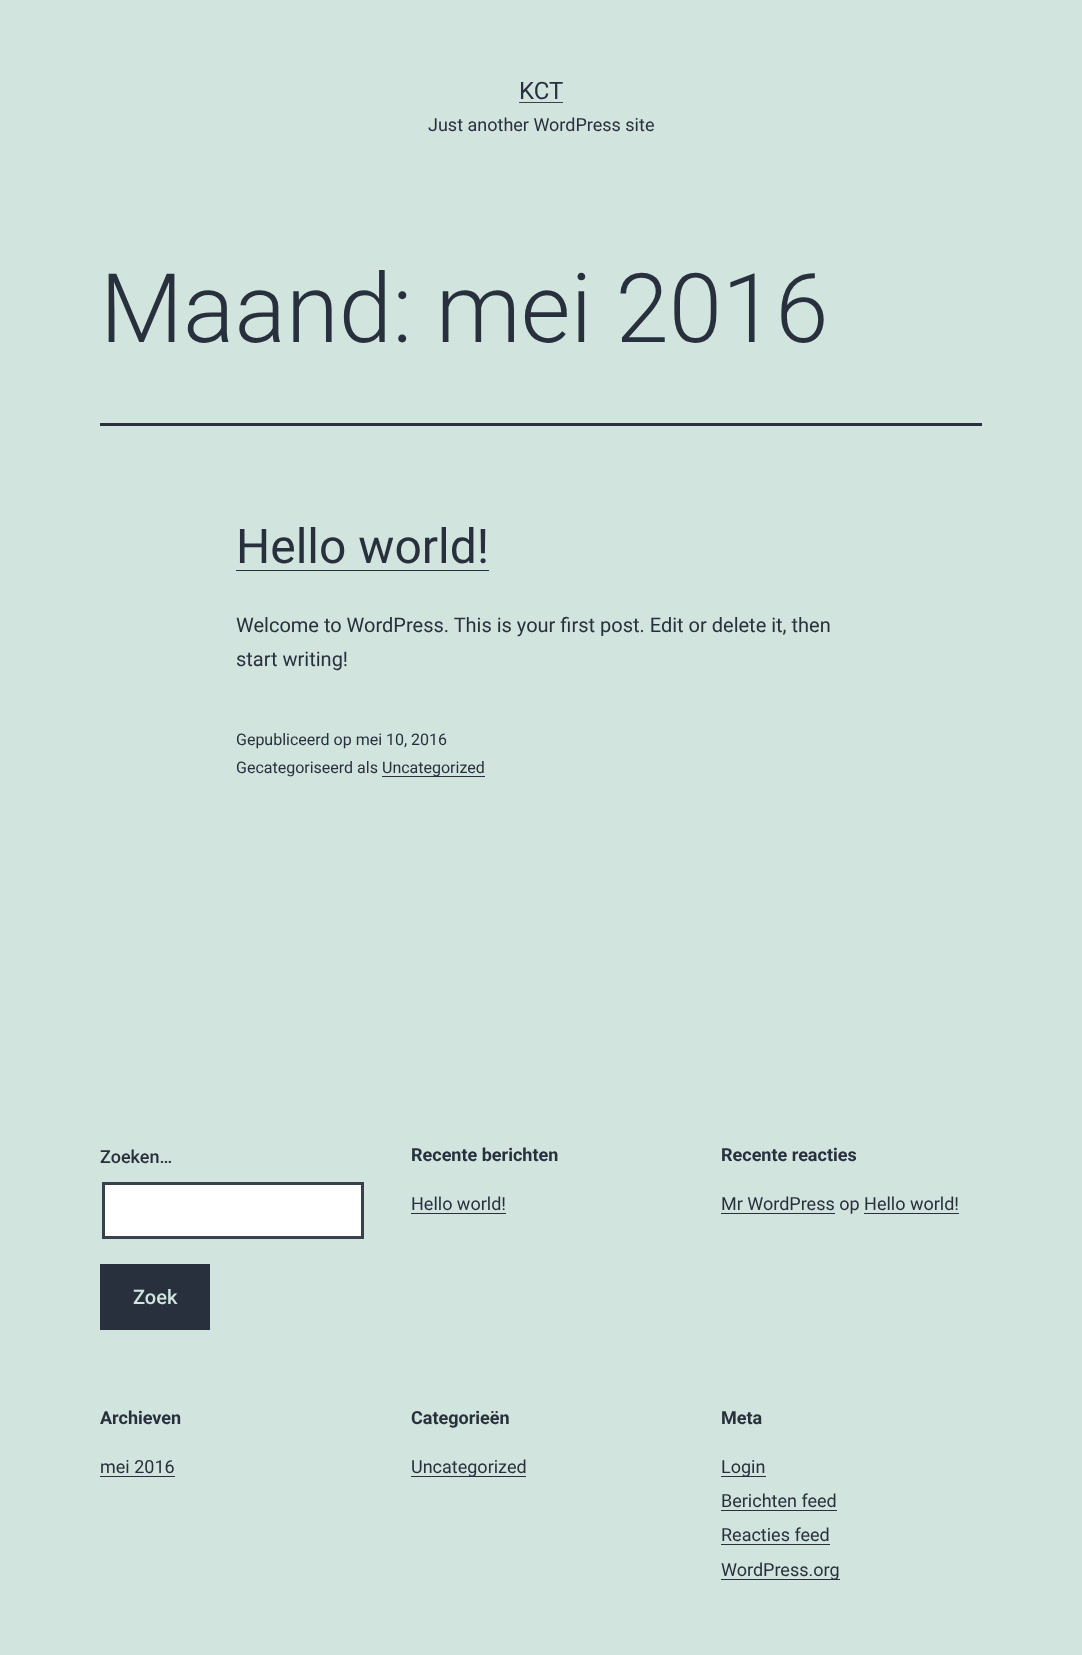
<?xml version="1.0" encoding="UTF-8"?>
<svg xmlns="http://www.w3.org/2000/svg" width="1082" height="1655">
    <rect width="100%" height="100%" fill="#D1E4DD"/>
    <text x="519" y="99" font-family="Roboto" font-size="24" fill="#28303D">KCT</text>
    <rect x="519" y="102" width="44" height="1" fill="#39414D"/>
    <text x="428" y="131" font-family="Roboto" font-size="18" fill="#28303D">Just another WordPress site</text>
    <rect x="100" y="423" width="882" height="3" fill="#28303D"/>
    <text x="100" y="342" font-family="Roboto" font-size="96" font-weight="300" fill="#28303D">Maand: mei 2016</text>
    <text x="236" y="563" font-family="Roboto" font-size="48" fill="#28303D">Hello world!</text>
    <rect x="236" y="570" width="253" height="1" fill="#28303D"/>
    <text font-family="Roboto" font-size="20" fill="#28303D">
        <tspan x="236" y="632">Welcome to WordPress. This is your first post. Edit or delete it, then</tspan>
        <tspan x="236" y="666">start writing!</tspan>
    </text>
    <text font-family="Roboto" font-size="16" fill="#28303D">
        <tspan x="236" y="745">Gepubliceerd op mei 10, 2016</tspan>
        <tspan x="236" y="773">Gecategoriseerd als</tspan>
    </text>
    <rect x="382" y="776" width="103" height="1" fill="#28303D"/>
    <text x="382" y="773" font-family="Roboto" font-size="16" fill="#28303D">Uncategorized</text>
    <text x="100" y="1163" font-family="Roboto" font-size="18" font-weight="500" fill="#28303D">Zoeken…</text>
    <rect x="103.5" y="1183.5" width="259" height="54" fill="#FFFFFF" stroke="#39414D" stroke-width="3"/>
    <rect x="100" y="1264" width="110" height="66" fill="#28303D"/>
    <text x="133" y="1304" font-family="Roboto" font-size="20" font-weight="500" fill="#D1E4DD">Zoek</text>
    <text x="411" y="1161" font-family="Roboto" font-size="18" font-weight="700" fill="#28303D">Recente berichten</text>
    <text x="411" y="1210" font-family="Roboto" font-size="18" fill="#28303D">Hello world!</text>
    <rect x="411" y="1213" width="95" height="1" fill="#28303D"/>
    <text x="721" y="1161" font-family="Roboto" font-size="18" font-weight="700" fill="#28303D">Recente reacties</text>
    <rect x="721" y="1213" width="114" height="1" fill="#28303D"/>
    <text x="721" y="1210" font-family="Roboto" font-size="18" fill="#28303D">Mr WordPress op Hello world!</text>
    <rect x="864" y="1213" width="95" height="1" fill="#28303D"/>
    <text x="100" y="1424" font-family="Roboto" font-size="18" font-weight="700" fill="#28303D">Archieven</text>
    <text x="100" y="1473" font-family="Roboto" font-size="18" fill="#28303D">mei 2016</text>
    <rect x="100" y="1476" width="75" height="1" fill="#28303D"/>
    <text x="411" y="1424" font-family="Roboto" font-size="18" font-weight="700" fill="#28303D">Categorieën</text>
    <rect x="411" y="1476" width="115" height="1" fill="#28303D"/>
    <text x="411" y="1473" font-family="Roboto" font-size="18" fill="#28303D">Uncategorized</text>
    <text x="721" y="1424" font-family="Roboto" font-size="18" font-weight="700" fill="#28303D">Meta</text>
    <rect x="721" y="1476" width="45" height="1" fill="#28303D"/>
    <text font-family="Roboto" font-size="18" fill="#28303D">
        <tspan x="721" y="1473">Login</tspan>
        <tspan x="721" y="1507">Berichten feed</tspan>
    </text>
    <rect x="721" y="1510" width="116" height="1" fill="#28303D"/>
    <text x="721" y="1541" font-family="Roboto" font-size="18" fill="#28303D">Reacties feed</text>
    <rect x="721" y="1544" width="109" height="1" fill="#28303D"/>
    <rect x="721" y="1579" width="119" height="1" fill="#28303D"/>
    <text x="721" y="1576" font-family="Roboto" font-size="18" fill="#28303D">WordPress.org</text>
</svg>
